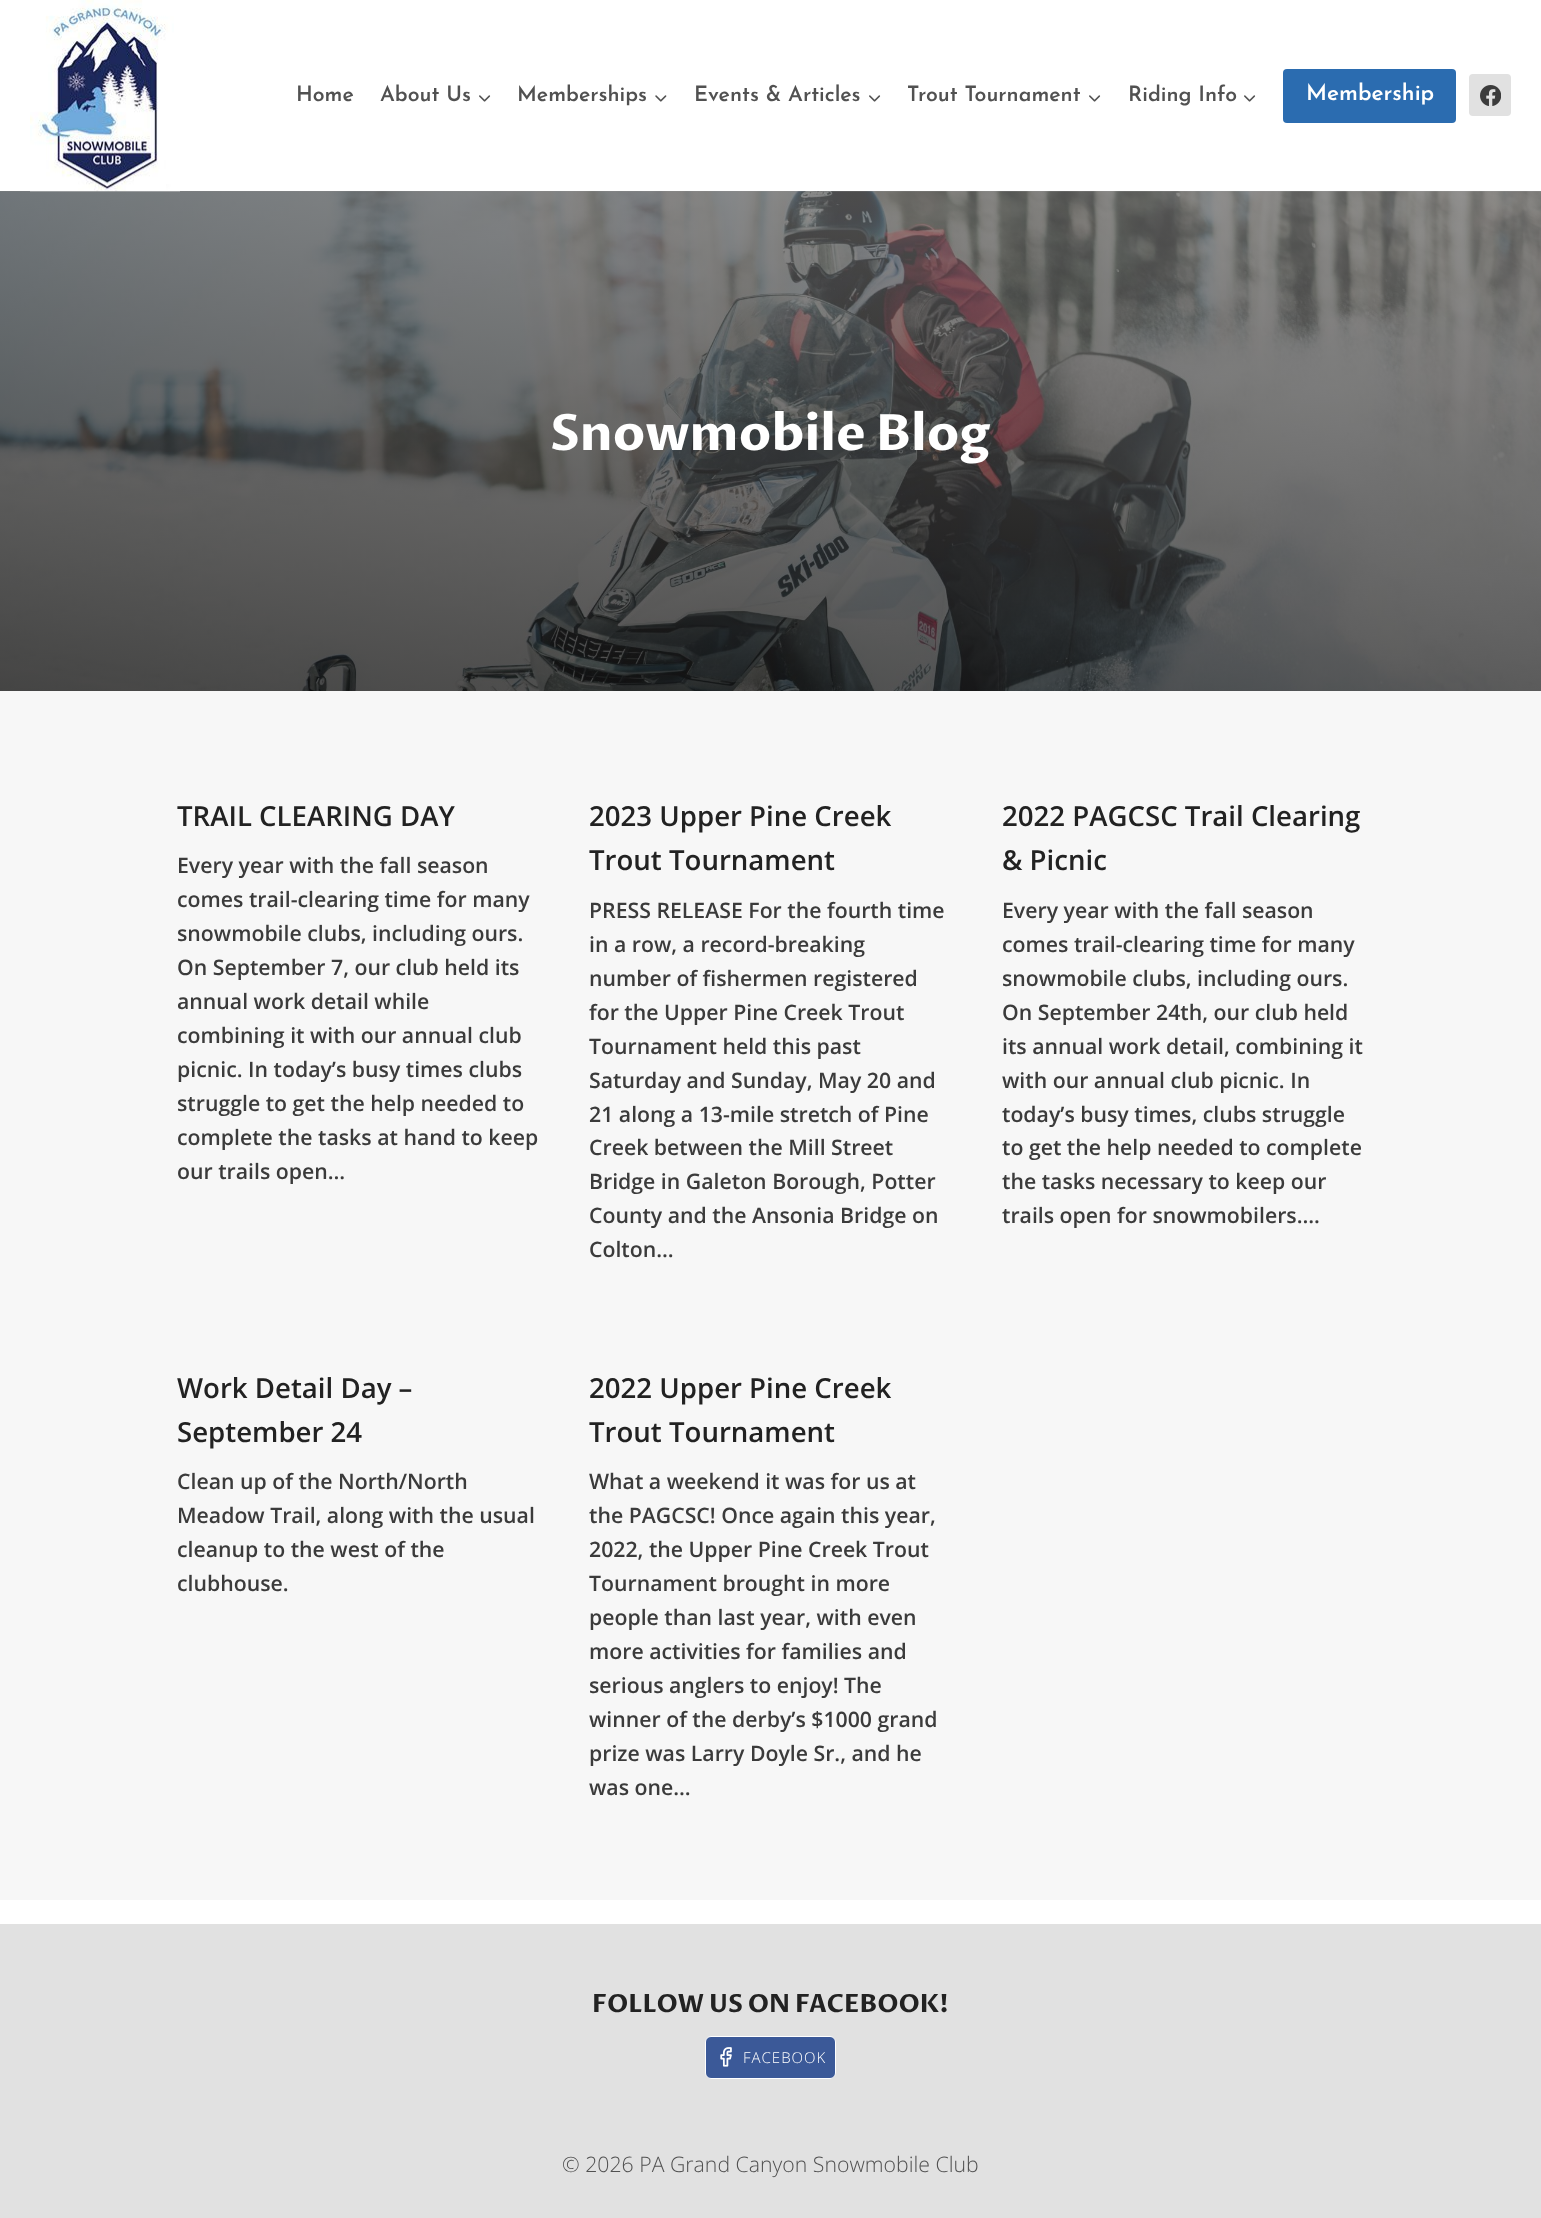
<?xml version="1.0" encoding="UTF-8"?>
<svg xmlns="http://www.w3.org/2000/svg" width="1541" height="2218">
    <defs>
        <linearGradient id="g1" gradientUnits="userSpaceOnUse" x1="820" y1="90" x2="721" y2="793"><stop offset="0" stop-color="#727272" stop-opacity="0.7"/><stop offset="1" stop-color="#000000" stop-opacity="0.7"/></linearGradient>
    </defs>
    <rect width="100%" height="100%" fill="#FFFFFF"/>
    <image x="0" y="191" width="1541" height="500" href="img_05.png"/>
    <rect x="0" y="191" width="1541" height="500" fill="url(#g1)"/>
    <image x="30" y="0" width="150" height="192" href="img_01.png"/>
    <text x="296" y="101" font-family="Josefin Sans" font-size="21.25" font-weight="600" fill="#515151">Home</text>
    <text x="380" y="101" font-family="Josefin Sans" font-size="21.25" font-weight="600" fill="#515151">About Us</text>
    <image x="479" y="95" width="12" height="7" href="img_02.png"/>
    <text x="517" y="101" font-family="Josefin Sans" font-size="21.25" font-weight="600" fill="#515151">Memberships</text>
    <image x="655" y="95" width="12" height="7" href="img_03.png"/>
    <text x="694" y="101" font-family="Josefin Sans" font-size="21.25" font-weight="600" fill="#515151">Events &amp; Articles</text>
    <image x="869" y="95" width="12" height="7" href="img_02.png"/>
    <text x="907" y="101" font-family="Josefin Sans" font-size="21.25" font-weight="600" fill="#515151">Trout Tournament</text>
    <image x="1089" y="95" width="12" height="7" href="img_02.png"/>
    <text x="1128" y="101" font-family="Josefin Sans" font-size="21.25" font-weight="600" fill="#515151">Riding Info</text>
    <image x="1244" y="95" width="12" height="7" href="img_02.png"/>
    <rect x="1283" y="69" width="173" height="54" rx="4" fill="#2B6CB0"/>
    <text x="1306" y="100" font-family="Josefin Sans" font-size="22.5" font-weight="600" fill="#FFFFFF">Membership</text>
    <rect x="1469" y="74" width="42" height="42" rx="4" fill="#E1E1E1"/>
    <image x="1480" y="85" width="21" height="21" href="img_04.png"/>
    <text x="550" y="450" font-family="Proza Libre" font-size="50" font-weight="700" fill="#FFFFFF">Snowmobile Blog</text>
    <rect x="0" y="691" width="1541" height="1209" fill="#F7F7F7"/>
    <text x="177" y="826" font-family="Open Sans" font-size="27.6" font-weight="600" fill="#222222">TRAIL CLEARING DAY</text>
    <text font-family="Open Sans" font-size="21.25" font-weight="600" fill="#3B3B3B">
        <tspan x="177" y="873">Every year with the fall season</tspan>
        <tspan x="177" y="907">comes trail-clearing time for many</tspan>
        <tspan x="177" y="941">snowmobile clubs, including ours.</tspan>
        <tspan x="177" y="975">On September 7, our club held its</tspan>
        <tspan x="177" y="1009">annual work detail while</tspan>
        <tspan x="177" y="1043">combining it with our annual club</tspan>
        <tspan x="177" y="1077">picnic. In today’s busy times clubs</tspan>
        <tspan x="177" y="1111">struggle to get the help needed to</tspan>
        <tspan x="177" y="1145">complete the tasks at hand to keep</tspan>
        <tspan x="177" y="1179">our trails open…</tspan>
    </text>
    <text font-family="Open Sans" font-size="27.6" font-weight="600" fill="#222222">
        <tspan x="589" y="826">2023 Upper Pine Creek</tspan>
        <tspan x="589" y="870">Trout Tournament</tspan>
    </text>
    <text font-family="Open Sans" font-size="21.25" font-weight="600" fill="#3B3B3B">
        <tspan x="589" y="918">PRESS RELEASE For the fourth time</tspan>
        <tspan x="589" y="952">in a row, a record-breaking</tspan>
        <tspan x="589" y="986">number of fishermen registered</tspan>
        <tspan x="589" y="1020">for the Upper Pine Creek Trout</tspan>
        <tspan x="589" y="1054">Tournament held this past</tspan>
        <tspan x="589" y="1088">Saturday and Sunday, May 20 and</tspan>
        <tspan x="589" y="1122">21 along a 13-mile stretch of Pine</tspan>
        <tspan x="589" y="1155">Creek between the Mill Street</tspan>
        <tspan x="589" y="1189">Bridge in Galeton Borough, Potter</tspan>
        <tspan x="589" y="1223">County and the Ansonia Bridge on</tspan>
        <tspan x="589" y="1257">Colton…</tspan>
    </text>
    <text font-family="Open Sans" font-size="27.6" font-weight="600" fill="#222222">
        <tspan x="1002" y="826">2022 PAGCSC Trail Clearing</tspan>
        <tspan x="1002" y="870">&amp; Picnic</tspan>
    </text>
    <text font-family="Open Sans" font-size="21.25" font-weight="600" fill="#3B3B3B">
        <tspan x="1002" y="918">Every year with the fall season</tspan>
        <tspan x="1002" y="952">comes trail-clearing time for many</tspan>
        <tspan x="1002" y="986">snowmobile clubs, including ours.</tspan>
        <tspan x="1002" y="1020">On September 24th, our club held</tspan>
        <tspan x="1002" y="1054">its annual work detail, combining it</tspan>
        <tspan x="1002" y="1088">with our annual club picnic. In</tspan>
        <tspan x="1002" y="1122">today’s busy times, clubs struggle</tspan>
        <tspan x="1002" y="1155">to get the help needed to complete</tspan>
        <tspan x="1002" y="1189">the tasks necessary to keep our</tspan>
        <tspan x="1002" y="1223">trails open for snowmobilers….</tspan>
    </text>
    <text font-family="Open Sans" font-size="27.6" font-weight="600" fill="#222222">
        <tspan x="177" y="1398">Work Detail Day –</tspan>
        <tspan x="177" y="1442">September 24</tspan>
    </text>
    <text font-family="Open Sans" font-size="21.25" font-weight="600" fill="#3B3B3B">
        <tspan x="177" y="1489">Clean up of the North/North</tspan>
        <tspan x="177" y="1523">Meadow Trail, along with the usual</tspan>
        <tspan x="177" y="1557">cleanup to the west of the</tspan>
        <tspan x="177" y="1591">clubhouse.</tspan>
    </text>
    <text font-family="Open Sans" font-size="27.6" font-weight="600" fill="#222222">
        <tspan x="589" y="1398">2022 Upper Pine Creek</tspan>
        <tspan x="589" y="1442">Trout Tournament</tspan>
    </text>
    <text font-family="Open Sans" font-size="21.25" font-weight="600" fill="#3B3B3B">
        <tspan x="589" y="1489">What a weekend it was for us at</tspan>
        <tspan x="589" y="1523">the PAGCSC! Once again this year,</tspan>
        <tspan x="589" y="1557">2022, the Upper Pine Creek Trout</tspan>
        <tspan x="589" y="1591">Tournament brought in more</tspan>
        <tspan x="589" y="1625">people than last year, with even</tspan>
        <tspan x="589" y="1659">more activities for families and</tspan>
        <tspan x="589" y="1693">serious anglers to enjoy! The</tspan>
        <tspan x="589" y="1727">winner of the derby’s $1000 grand</tspan>
        <tspan x="589" y="1761">prize was Larry Doyle Sr., and he</tspan>
        <tspan x="589" y="1795">was one…</tspan>
    </text>
    <rect x="0" y="1924" width="1541" height="294" fill="#E1E1E1"/>
    <text x="592" y="2012" font-family="Proza Libre" font-size="25" font-weight="700" fill="#222222">FOLLOW US ON FACEBOOK!</text>
    <rect x="705.5" y="2036.5" width="130" height="42" rx="5.5" fill="#3B5998" stroke="#FFFFFF"/>
    <image x="720" y="2047" width="12" height="20" href="img_06.png"/>
    <text x="743" y="2063" font-family="Open Sans" font-size="15" font-weight="300" letter-spacing="1" fill="#FFFFFF">FACEBOOK</text>
    <text x="562" y="2172" font-family="Open Sans" font-size="21.25" font-weight="300" fill="#515151">© 2026 PA Grand Canyon Snowmobile Club</text>
</svg>
